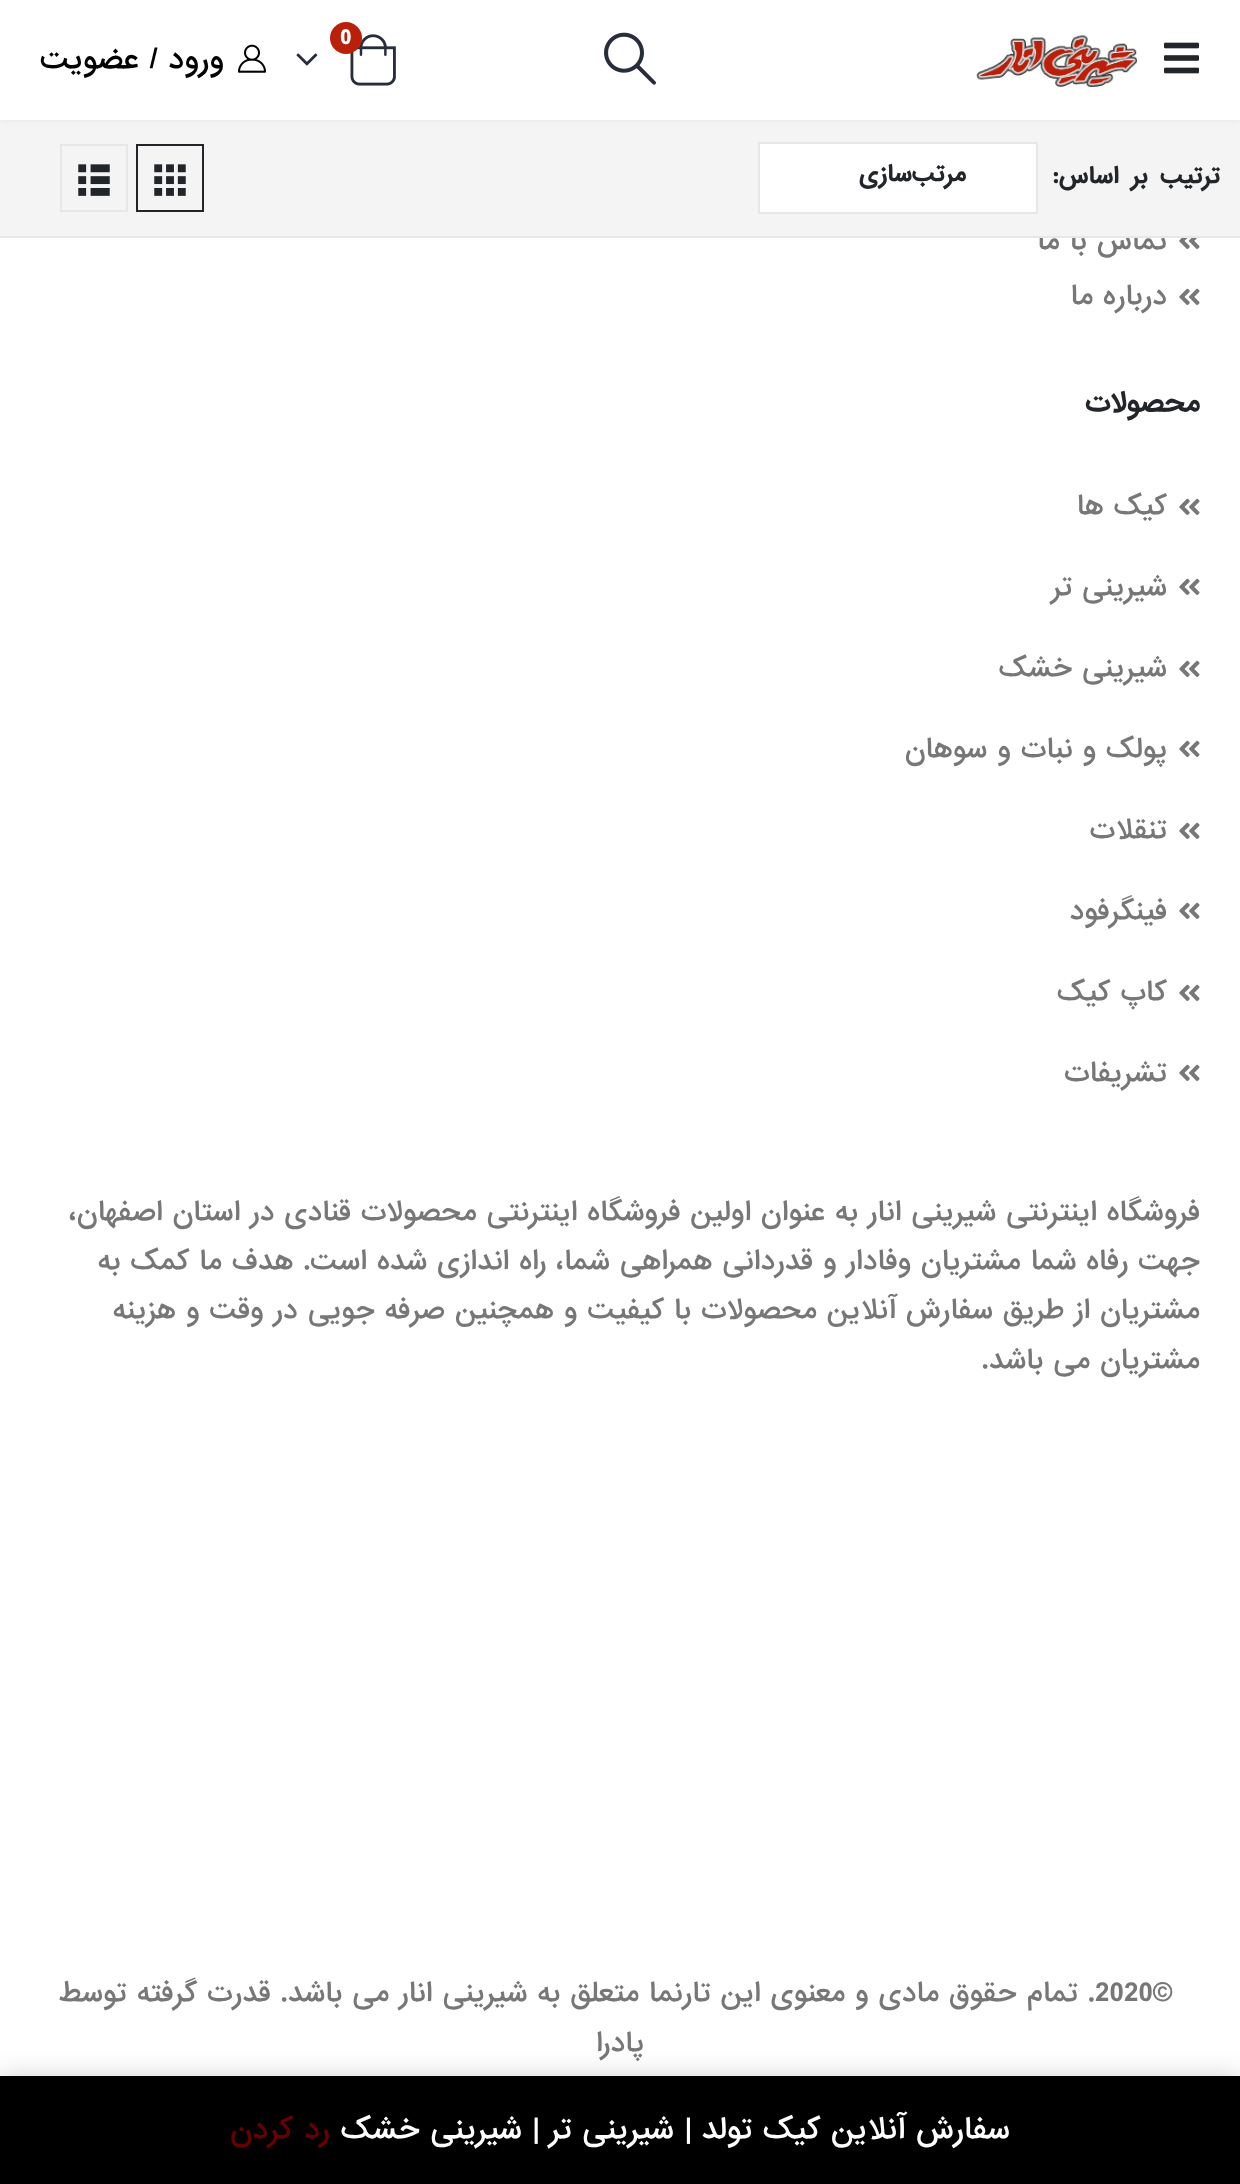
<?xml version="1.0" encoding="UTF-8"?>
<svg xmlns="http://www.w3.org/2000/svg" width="1240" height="2184">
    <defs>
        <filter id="blur1" x="-50%" y="-200%" width="200%" height="500%"><feGaussianBlur stdDeviation="3"/></filter>
        <filter id="blur2" x="-50%" y="-200%" width="200%" height="500%"><feGaussianBlur stdDeviation="14"/></filter>
    </defs>
    <rect width="100%" height="100%" fill="#FFFFFF"/>
    <text x="1167" y="249" font-family="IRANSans" font-size="26" font-weight="500" direction="rtl" fill="#777777">تماس با ما</text>
    <rect x="0" y="120" width="1240" height="116" fill="#F4F4F4"/>
    <rect x="0" y="0" width="1240" height="120" fill="#000000" fill-opacity="0.06" filter="url(#blur1)"/>
    <rect x="0" y="0" width="1240" height="120" fill="#FFFFFF"/>
    <image x="1164" y="42" width="35" height="32" href="img_01.png"/>
    <image x="976" y="35" width="162" height="52" href="img_02.png"/>
    <image x="604" y="32" width="52" height="53" href="img_03.png"/>
    <image x="350" y="34" width="46" height="52" href="img_04.png"/>
    <circle cx="346" cy="38" r="16" fill="#BA1F09"/>
    <text x="340" y="44" font-family="'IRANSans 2'" font-size="20" font-weight="700" fill="#FFFFFF">0</text>
    <image x="296" y="53" width="22" height="13" href="img_05.png"/>
    <image x="238" y="44" width="28" height="29" href="img_06.png"/>
    <text x="224" y="68" font-family="IRANSans" font-size="28" font-weight="500" direction="rtl" fill="#000000">ورود / عضویت</text>
    <rect x="0" y="236" width="1240" height="2" fill="#E7E7E7"/>
    <text x="1220" y="183" word-spacing="4" font-family="'IRANSans 2'" font-size="22" font-weight="700" letter-spacing="-0.5" direction="rtl" fill="#222529">ترتیب بر اساس:</text>
    <rect x="759" y="143" width="278" height="70" fill="#FFFFFF" stroke="#E7E7E7" stroke-width="2"/>
    <text x="966" y="181" font-family="'IRANSans 2'" font-size="22" font-weight="700" letter-spacing="-0.5" direction="rtl" fill="#222529">مرتب‌سازی</text>
    <rect x="137" y="145" width="66" height="66" fill="none" stroke="#222529" stroke-width="2"/>
    <image x="154" y="164" width="32" height="32" href="img_07.png"/>
    <rect x="61" y="145" width="66" height="66" fill="none" stroke="#E7E7E7" stroke-width="2"/>
    <image x="78" y="164" width="32" height="32" href="img_08.png"/>
    <image x="1179" y="238" width="21" height="11" href="img_09.png"/>
    <image x="1179" y="288" width="21" height="17" href="img_10.png"/>
    <text x="1167" y="304" font-family="IRANSans" font-size="26" font-weight="500" direction="rtl" fill="#777777">درباره ما</text>
    <text x="1200" y="411" font-family="IRANSans" font-size="26" font-weight="700" direction="rtl" fill="#222529">محصولات</text>
    <image x="1179" y="498" width="21" height="17" href="img_10.png"/>
    <text x="1167" y="514" font-family="IRANSans" font-size="26" font-weight="500" direction="rtl" fill="#777777">کیک ها</text>
    <image x="1179" y="578" width="21" height="17" href="img_10.png"/>
    <text x="1167" y="595" font-family="IRANSans" font-size="26" font-weight="500" direction="rtl" fill="#777777">شیرینی تر</text>
    <image x="1179" y="660" width="21" height="17" href="img_10.png"/>
    <text x="1167" y="676" font-family="IRANSans" font-size="26" font-weight="500" direction="rtl" fill="#777777">شیرینی خشک</text>
    <image x="1179" y="740" width="21" height="17" href="img_10.png"/>
    <text x="1167" y="757" font-family="IRANSans" font-size="26" font-weight="500" direction="rtl" fill="#777777">پولک و نبات و سوهان</text>
    <image x="1179" y="822" width="21" height="17" href="img_10.png"/>
    <text x="1167" y="838" font-family="IRANSans" font-size="26" font-weight="500" direction="rtl" fill="#777777">تنقلات</text>
    <image x="1179" y="902" width="21" height="17" href="img_10.png"/>
    <text x="1167" y="919" font-family="IRANSans" font-size="26" font-weight="500" direction="rtl" fill="#777777">فینگرفود</text>
    <image x="1179" y="984" width="21" height="17" href="img_10.png"/>
    <text x="1167" y="1000" font-family="IRANSans" font-size="26" font-weight="500" direction="rtl" fill="#777777">کاپ کیک</text>
    <image x="1179" y="1064" width="21" height="17" href="img_10.png"/>
    <text x="1167" y="1081" font-family="IRANSans" font-size="26" font-weight="500" direction="rtl" fill="#777777">تشریفات</text>
    <text font-family="IRANSans" font-size="26" font-weight="500" direction="rtl" fill="#777777">
        <tspan x="1200" y="1220">فروشگاه اینترنتی شیرینی انار به عنوان اولین فروشگاه اینترنتی محصولات قنادی در استان اصفهان،</tspan>
        <tspan x="1200" y="1269">جهت رفاه شما مشتریان وفادار و قدردانی همراهی شما، راه اندازی شده است. هدف ما کمک به</tspan>
        <tspan x="1200" y="1318">مشتریان از طریق سفارش آنلاین محصولات با کیفیت و همچنین صرفه جویی در وقت و هزینه</tspan>
        <tspan x="1200" y="1368">مشتریان می باشد.</tspan>
    </text>
    <text x="1095" y="2001" font-family="IRANSans" font-size="26" font-weight="500" fill="#777777">2020©</text>
    <text x="1095" y="2001" font-family="IRANSans" font-size="26" font-weight="500" direction="rtl" fill="#777777">. تمام حقوق مادی و معنوی این تارنما متعلق به شیرینی انار می باشد. قدرت گرفته توسط</text>
    <text x="644" y="2051" font-family="IRANSans" font-size="26" font-weight="500" direction="rtl" fill="#777777">پادرا</text>
    <rect x="0" y="2078" width="1240" height="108" fill="#000000" fill-opacity="0.2" filter="url(#blur2)"/>
    <rect x="0" y="2076" width="1240" height="108" fill="#000000"/>
    <text x="1010" y="2138" font-family="IRANSans" font-size="28" font-weight="500" direction="rtl" fill="#FFFFFF">سفارش آنلاین کیک تولد | شیرینی تر | شیرینی خشک</text>
    <text x="330" y="2138" font-family="IRANSans" font-size="28" font-weight="500" direction="rtl" fill="#660100">رد کردن</text>
</svg>
